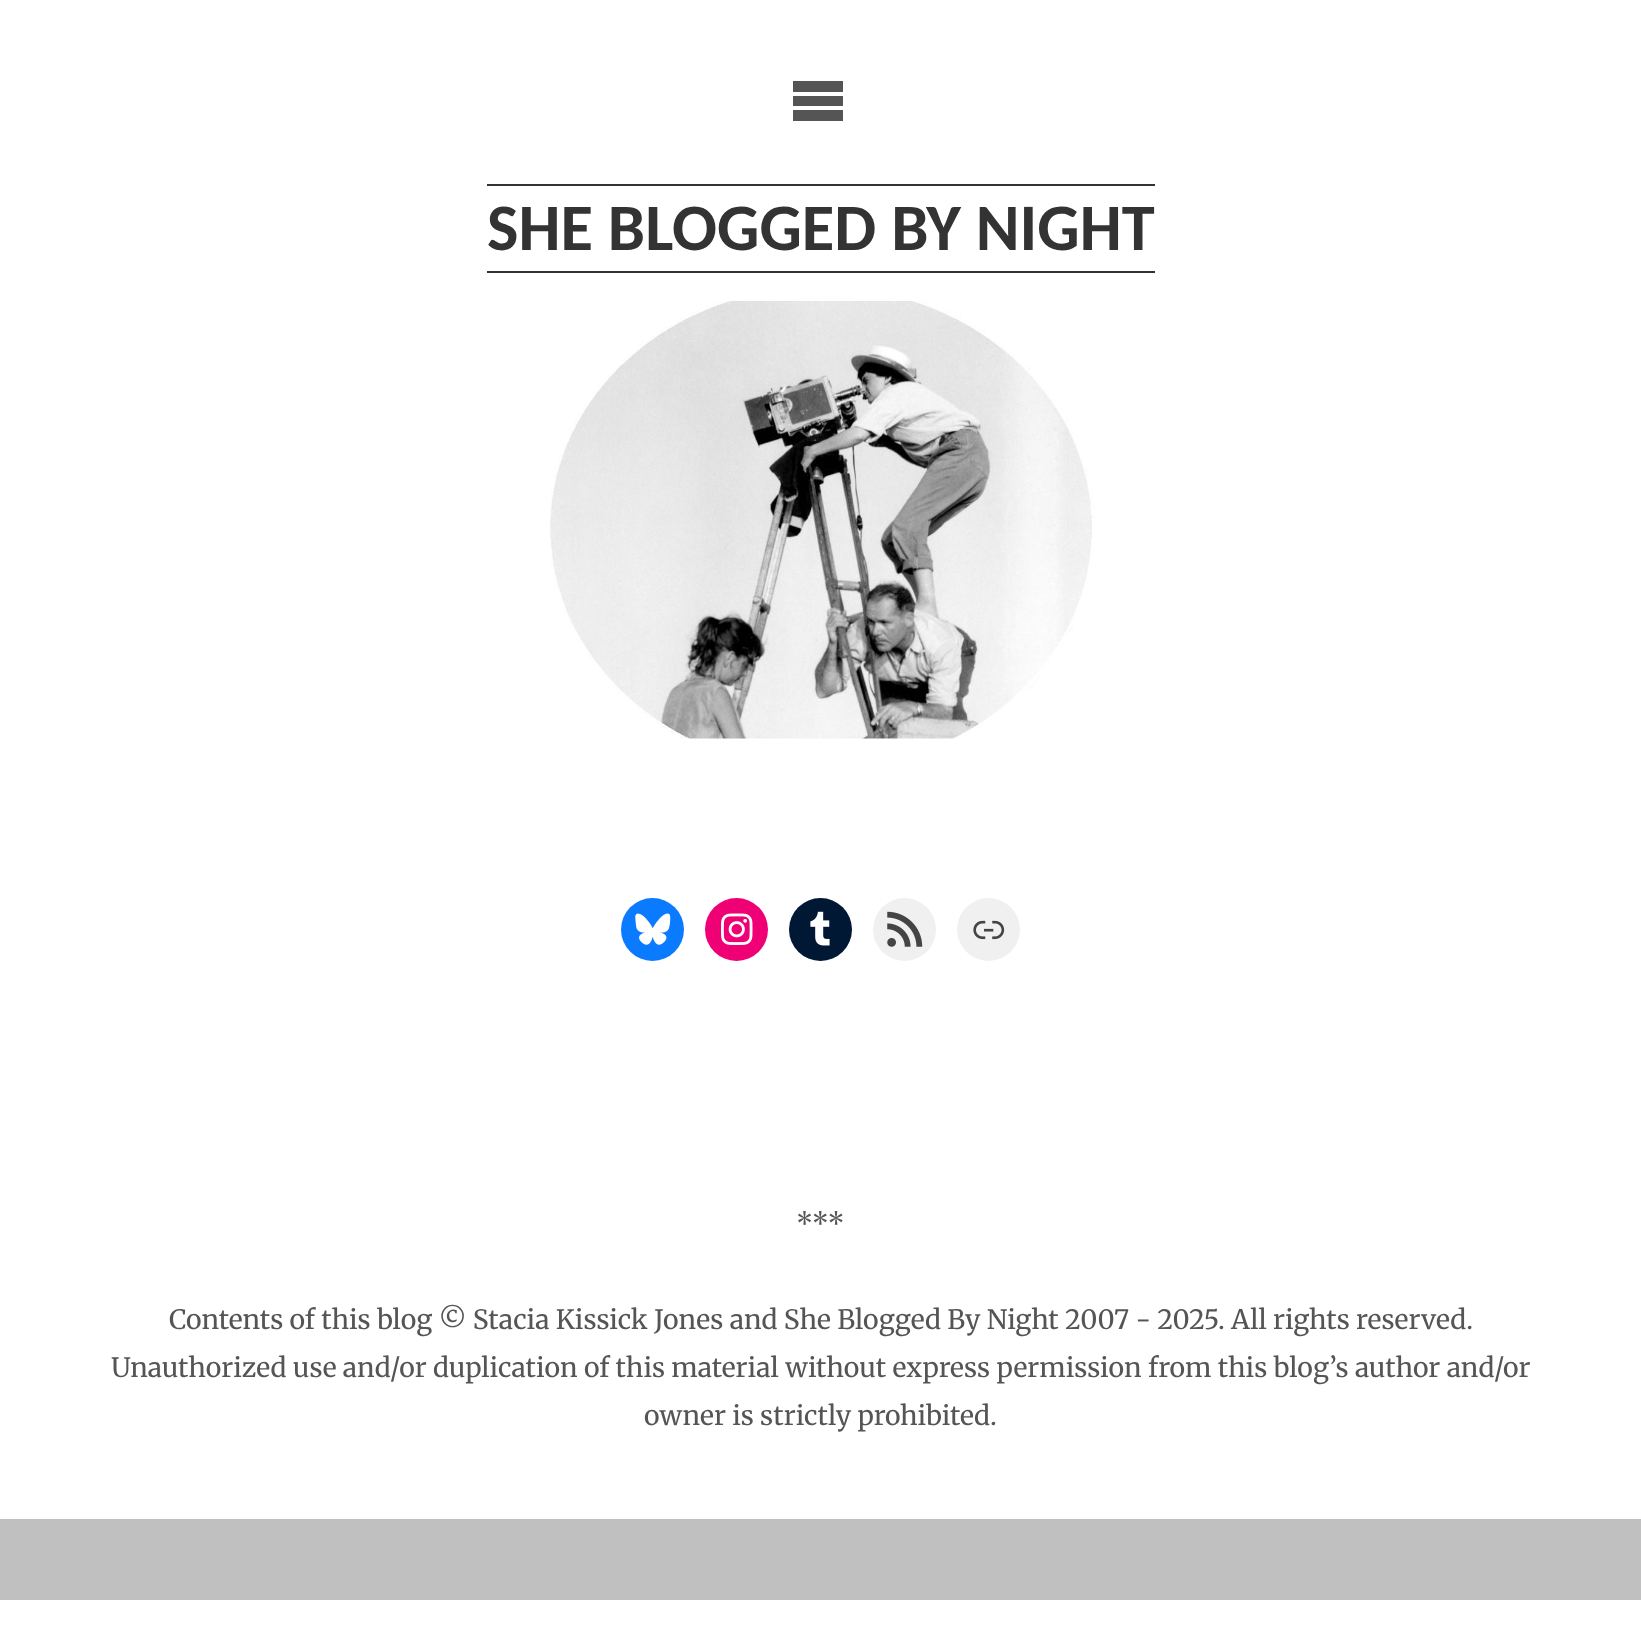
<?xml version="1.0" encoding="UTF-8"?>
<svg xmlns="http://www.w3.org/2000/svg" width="1641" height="1626">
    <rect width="100%" height="100%" fill="#C0C0C0"/>
    <rect x="0" y="0" width="1641" height="1519" fill="#FFFFFF"/>
    <path d="M 793 81 H 843 V 92 H 793 Z M 793 96 H 843 V 106 H 793 Z M 793 110 H 843 V 121 H 793 Z" fill="#555555"/>
    <rect x="487" y="184" width="668" height="2" fill="#333333"/>
    <rect x="487" y="271" width="668" height="2" fill="#333333"/>
    <text x="487" y="250" font-family="Carlito" font-size="66.5" font-weight="700" fill="#333333">SHE BLOGGED BY NIGHT</text>
    <image x="550" y="301" width="545" height="438" href="img_01.png"/>
    <circle cx="652.5" cy="929.5" r="31.5" fill="#0A7AFF"/>
    <image x="635" y="913" width="36" height="32" href="img_02.png"/>
    <circle cx="736.5" cy="929.5" r="31.5" fill="#F00075"/>
    <image x="721" y="913" width="32" height="32" href="img_03.png"/>
    <circle cx="820.5" cy="929.5" r="31.5" fill="#011835"/>
    <image x="810" y="911" width="20" height="35" href="img_04.png"/>
    <circle cx="904.5" cy="929.5" r="31.5" fill="#F0F0F0"/>
    <image x="887" y="911" width="36" height="36" href="img_05.png"/>
    <circle cx="988.5" cy="929.5" r="31.5" fill="#F0F0F0"/>
    <image x="973" y="920" width="32" height="20" href="img_06.png"/>
    <text x="796" y="1233" font-family="Merriweather" font-size="26.6" fill="#555555">***</text>
    <text x="169" y="1329" font-family="Merriweather" font-size="26.6" fill="#555555">Contents of this blog © Stacia Kissick Jones and She Blogged By Night 2007 - 2025. All rights reserved.</text>
    <text x="111" y="1377" font-family="Merriweather" font-size="26.6" fill="#555555">Unauthorized use and/or duplication of this material without express permission from this blog’s author and/or</text>
    <text x="644" y="1425" font-family="Merriweather" font-size="26.6" fill="#555555">owner is strictly prohibited.</text>
    <rect x="0" y="1600" width="1641" height="26" fill="#FFFFFF"/>
</svg>
